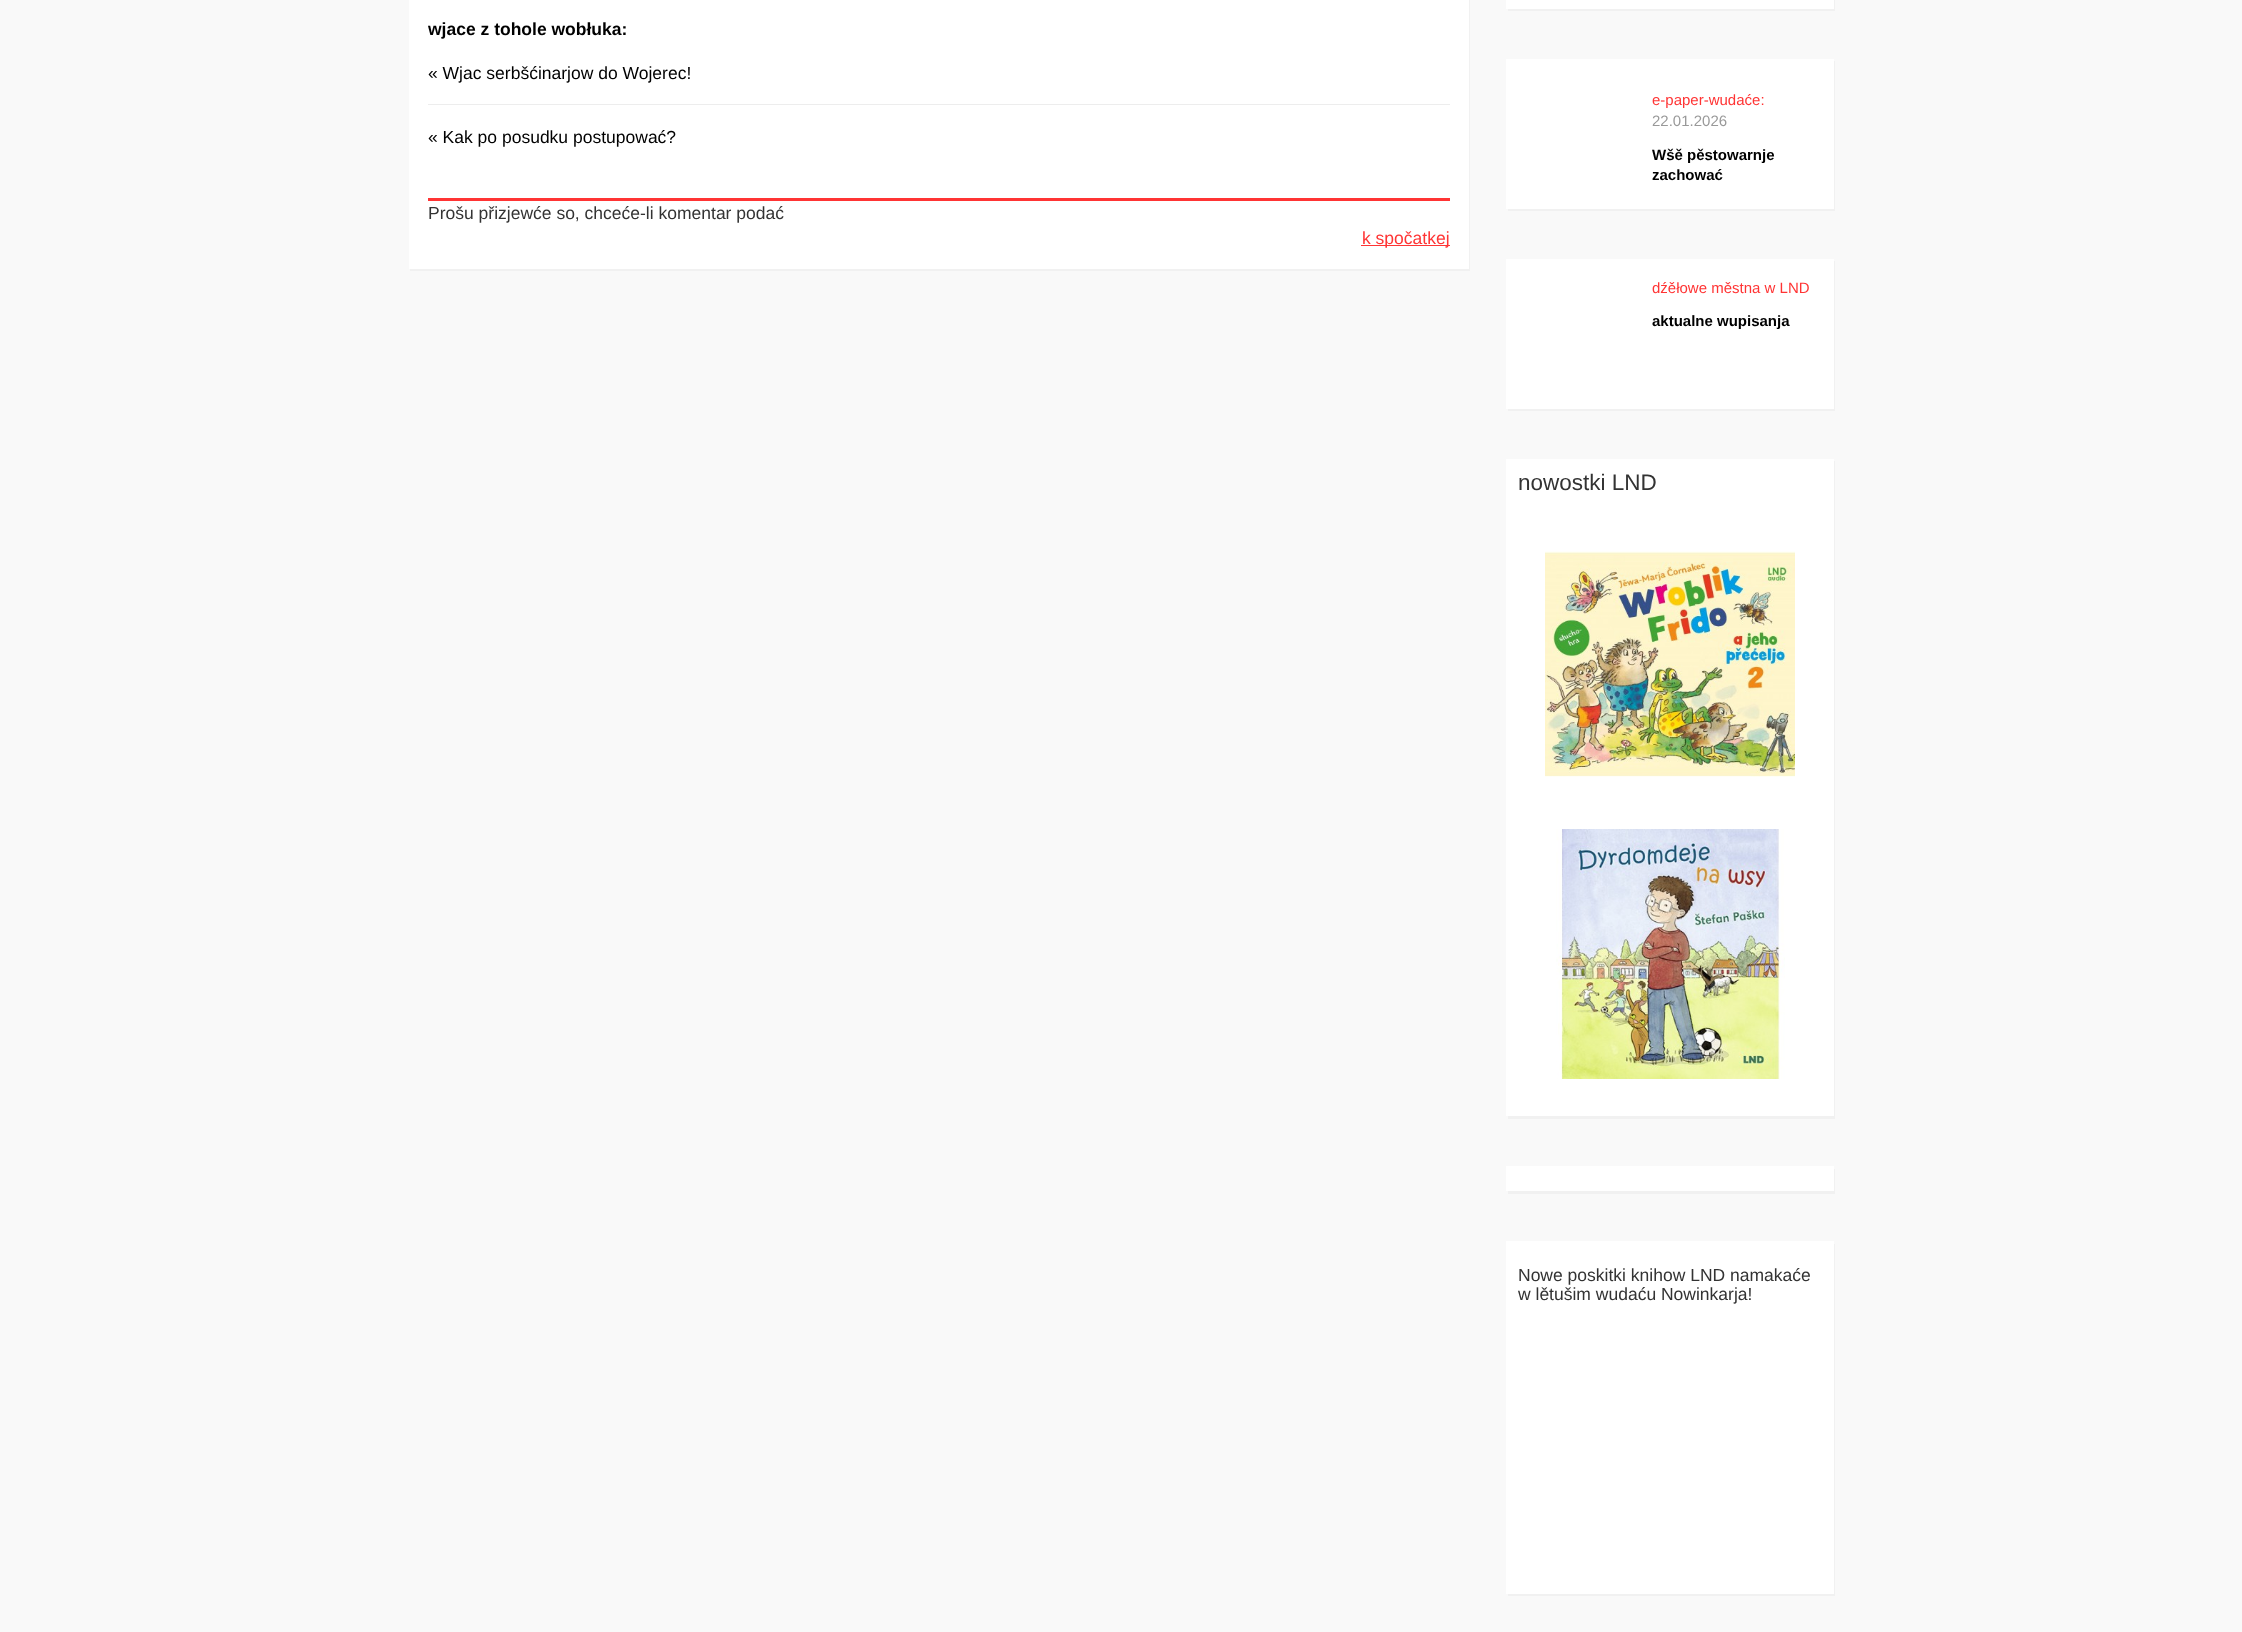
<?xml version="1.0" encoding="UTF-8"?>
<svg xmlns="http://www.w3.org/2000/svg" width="2242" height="1632">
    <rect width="100%" height="100%" fill="#F9F9F9"/>
    <path d="M 410 269 V 271 H 1470 V -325 H 1469 V 269 Z" fill="#F1F1F1"/>
    <rect x="409" y="0" width="1060" height="269" fill="#FFFFFF"/>
    <text x="428" y="35" font-family="Liberation Sans" font-size="17.5" font-weight="700" fill="#000000">wjace z tohole wobłuka:</text>
    <rect x="428" y="104" width="1022" height="1" fill="#EDEDED"/>
    <text x="428" y="79" font-family="Liberation Sans" font-size="17.5" fill="#000000">« Wjac serbšćinarjow do Wojerec!</text>
    <text x="428" y="143" font-family="Liberation Sans" font-size="17.5" fill="#000000">« Kak po posudku postupować?</text>
    <rect x="428" y="198" width="1022" height="3" fill="#FF3434"/>
    <text x="428" y="219" font-family="Liberation Sans" font-size="17.5" fill="#333333">Prošu přizjewće so, chceće-li komentar podać</text>
    <rect x="1361" y="245" width="89" height="1" fill="#FF3434"/>
    <text x="1362" y="244" font-family="Liberation Sans" font-size="17.5" fill="#FF3434">k spočatkej</text>
    <path d="M 1508 9 V 11 H 1835 V -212 H 1834 V 9 Z" fill="#F1F1F1"/>
    <rect x="1506" y="0" width="328" height="9" fill="#FFFFFF"/>
    <path d="M 1508 209 V 211 H 1835 V 61 H 1834 V 209 Z" fill="#F1F1F1"/>
    <rect x="1506" y="59" width="328" height="150" fill="#FFFFFF"/>
    <text x="1652" y="105" font-family="Liberation Sans" font-size="15" fill="#FF3434">e-paper-wudaće:</text>
    <text x="1652" y="126" font-family="Liberation Sans" font-size="15" fill="#999999">22.01.2026</text>
    <text font-family="Liberation Sans" font-size="15" font-weight="700" fill="#000000">
        <tspan x="1652" y="160">Wšě pěstowarnje</tspan>
        <tspan x="1652" y="180">zachować</tspan>
    </text>
    <path d="M 1508 409 V 411 H 1835 V 261 H 1834 V 409 Z" fill="#F1F1F1"/>
    <rect x="1506" y="259" width="328" height="150" fill="#FFFFFF"/>
    <text x="1652" y="293" font-family="Liberation Sans" font-size="15" fill="#FF3434">dźěłowe městna w LND</text>
    <text x="1652" y="326" font-family="Liberation Sans" font-size="15" font-weight="700" fill="#000000">aktualne wupisanja</text>
    <path d="M 1508 1116 V 1119 H 1835 V 461 H 1834 V 1116 Z" fill="#F1F1F1"/>
    <rect x="1506" y="459" width="328" height="657" fill="#FFFFFF"/>
    <text x="1518" y="490" font-family="Liberation Sans" font-size="22.5" fill="#333333">nowostki LND</text>
    <image x="1545" y="551" width="250" height="226" href="img_01.png"/>
    <image x="1556" y="829" width="229" height="250" href="img_02.png"/>
    <path d="M 1508 1191 V 1194 H 1835 V 1169 H 1834 V 1191 Z" fill="#F1F1F1"/>
    <rect x="1506" y="1166" width="328" height="25" fill="#FFFFFF"/>
    <path d="M 1508 1594 V 1596 H 1835 V 1244 H 1834 V 1594 Z" fill="#F1F1F1"/>
    <rect x="1506" y="1241" width="328" height="353" fill="#FFFFFF"/>
    <text font-family="Liberation Sans" font-size="17.5" fill="#333333">
        <tspan x="1518" y="1281">Nowe poskitki knihow LND namakaće</tspan>
        <tspan x="1518" y="1300">w lětušim wudaću Nowinkarja!</tspan>
    </text>
</svg>
